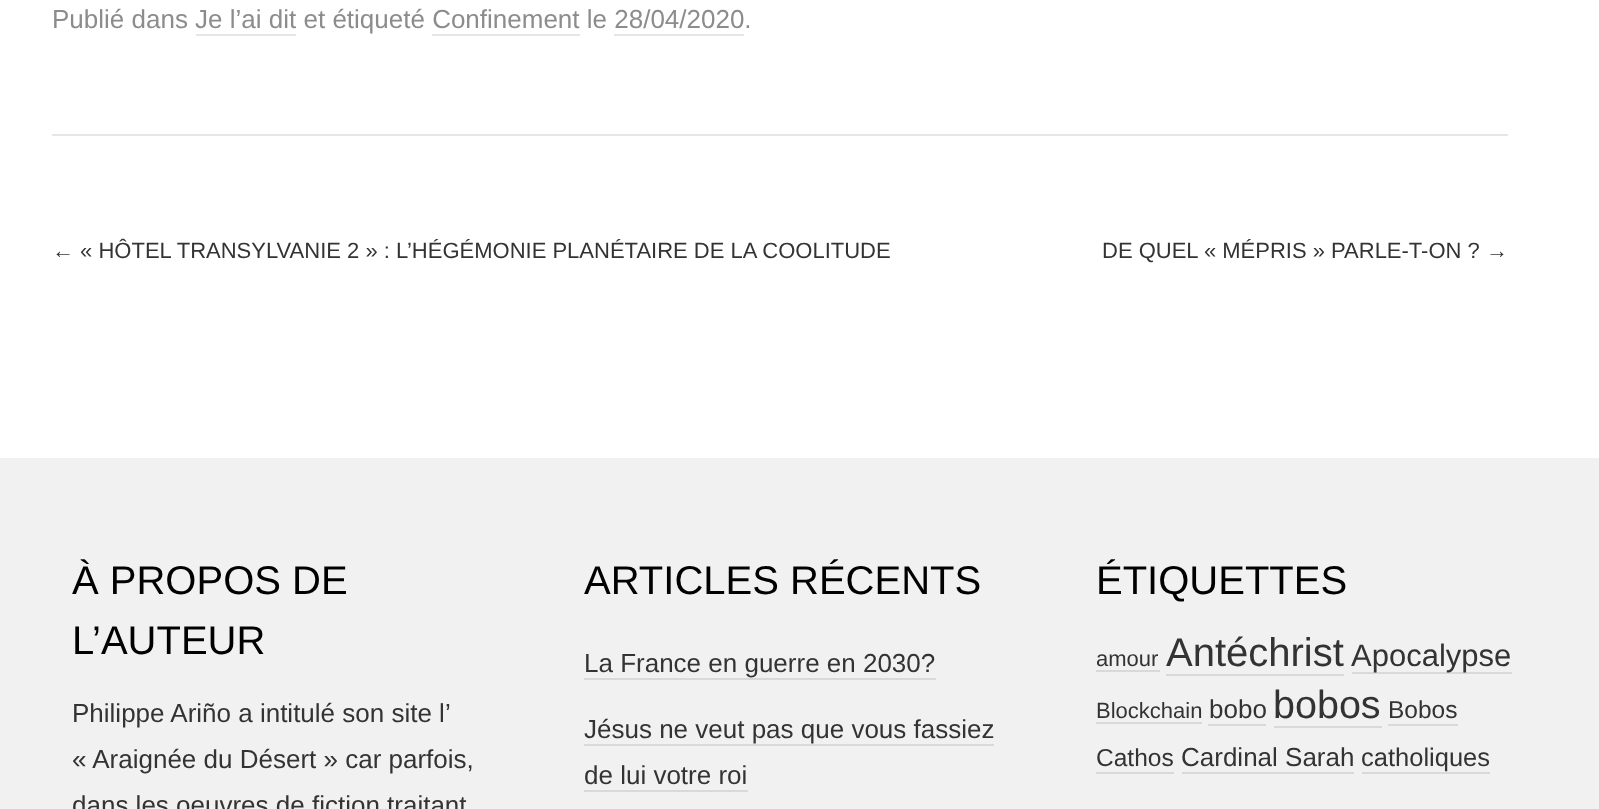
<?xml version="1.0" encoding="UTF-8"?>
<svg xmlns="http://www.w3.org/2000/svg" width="1599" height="809">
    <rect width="100%" height="100%" fill="#FFFFFF"/>
    <rect x="52" y="134" width="1456" height="2" fill="#E6E6E6"/>
    <text x="52" y="28" font-family="Liberation Sans" font-size="26" fill="#8C8C8C">Publié dans Je l’ai dit et étiqueté Confinement le 28/04/2020.</text>
    <rect x="196" y="34" width="100" height="2" fill="#E6E6E6"/>
    <rect x="432" y="34" width="148" height="2" fill="#E6E6E6"/>
    <rect x="614" y="34" width="130" height="2" fill="#E6E6E6"/>
    <text x="52" y="258" font-family="Liberation Sans" font-size="22" fill="#333333">← « HÔTEL TRANSYLVANIE 2 » : L’HÉGÉMONIE PLANÉTAIRE DE LA COOLITUDE</text>
    <text x="1102" y="258" font-family="Liberation Sans" font-size="22" fill="#333333">DE QUEL « MÉPRIS » PARLE-T-ON ? →</text>
    <rect x="0" y="458" width="1599" height="351" fill="#F1F1F1"/>
    <text font-family="Liberation Sans" font-size="40" fill="#000000">
        <tspan x="72" y="594">À PROPOS DE</tspan>
        <tspan x="72" y="654">L’AUTEUR</tspan>
    </text>
    <text font-family="Liberation Sans" font-size="26" fill="#333333">
        <tspan x="72" y="722">Philippe Ariño a intitulé son site l’</tspan>
        <tspan x="72" y="768">« Araignée du Désert » car parfois,</tspan>
        <tspan x="72" y="814">dans les oeuvres de fiction traitant</tspan>
    </text>
    <text x="584" y="594" font-family="Liberation Sans" font-size="40" fill="#000000">ARTICLES RÉCENTS</text>
    <text x="584" y="672" font-family="Liberation Sans" font-size="26" fill="#333333">La France en guerre en 2030?</text>
    <rect x="584" y="678" width="352" height="2" fill="#D9D9D9"/>
    <text x="584" y="738" font-family="Liberation Sans" font-size="26" fill="#333333">Jésus ne veut pas que vous fassiez</text>
    <rect x="584" y="744" width="410" height="2" fill="#D9D9D9"/>
    <text x="584" y="784" font-family="Liberation Sans" font-size="26" fill="#333333">de lui votre roi</text>
    <rect x="584" y="790" width="164" height="2" fill="#D9D9D9"/>
    <text x="1096" y="594" font-family="Liberation Sans" font-size="40" fill="#000000">ÉTIQUETTES</text>
    <text x="1096" y="666" font-family="Liberation Sans" font-size="22" fill="#333333">amour</text>
    <rect x="1096" y="670" width="64" height="2" fill="#D9D9D9"/>
    <text x="1166" y="666" font-family="Liberation Sans" font-size="40" fill="#333333">Antéchrist</text>
    <rect x="1166" y="674" width="178" height="2" fill="#D9D9D9"/>
    <rect x="1352" y="672" width="160" height="2" fill="#D9D9D9"/>
    <text x="1351" y="666" font-family="Liberation Sans" font-size="31" fill="#333333">Apocalypse</text>
    <text x="1096" y="718" font-family="Liberation Sans" font-size="22" fill="#333333">Blockchain</text>
    <rect x="1096" y="722" width="106" height="2" fill="#D9D9D9"/>
    <text x="1209" y="718" font-family="Liberation Sans" font-size="26" fill="#333333">bobo</text>
    <rect x="1208" y="724" width="58" height="2" fill="#D9D9D9"/>
    <text x="1273" y="718" font-family="Liberation Sans" font-size="39.5" fill="#333333">bobos</text>
    <rect x="1274" y="726" width="108" height="2" fill="#D9D9D9"/>
    <text x="1388" y="718" font-family="Liberation Sans" font-size="24.5" fill="#333333">Bobos</text>
    <rect x="1388" y="724" width="70" height="2" fill="#D9D9D9"/>
    <text x="1096" y="766" font-family="Liberation Sans" font-size="24.5" fill="#333333">Cathos</text>
    <rect x="1096" y="772" width="78" height="2" fill="#D9D9D9"/>
    <text x="1181" y="766" font-family="Liberation Sans" font-size="26" fill="#333333">Cardinal Sarah</text>
    <rect x="1182" y="772" width="172" height="2" fill="#D9D9D9"/>
    <text x="1361" y="766" font-family="Liberation Sans" font-size="25.5" fill="#333333">catholiques</text>
    <rect x="1362" y="772" width="128" height="2" fill="#D9D9D9"/>
</svg>
